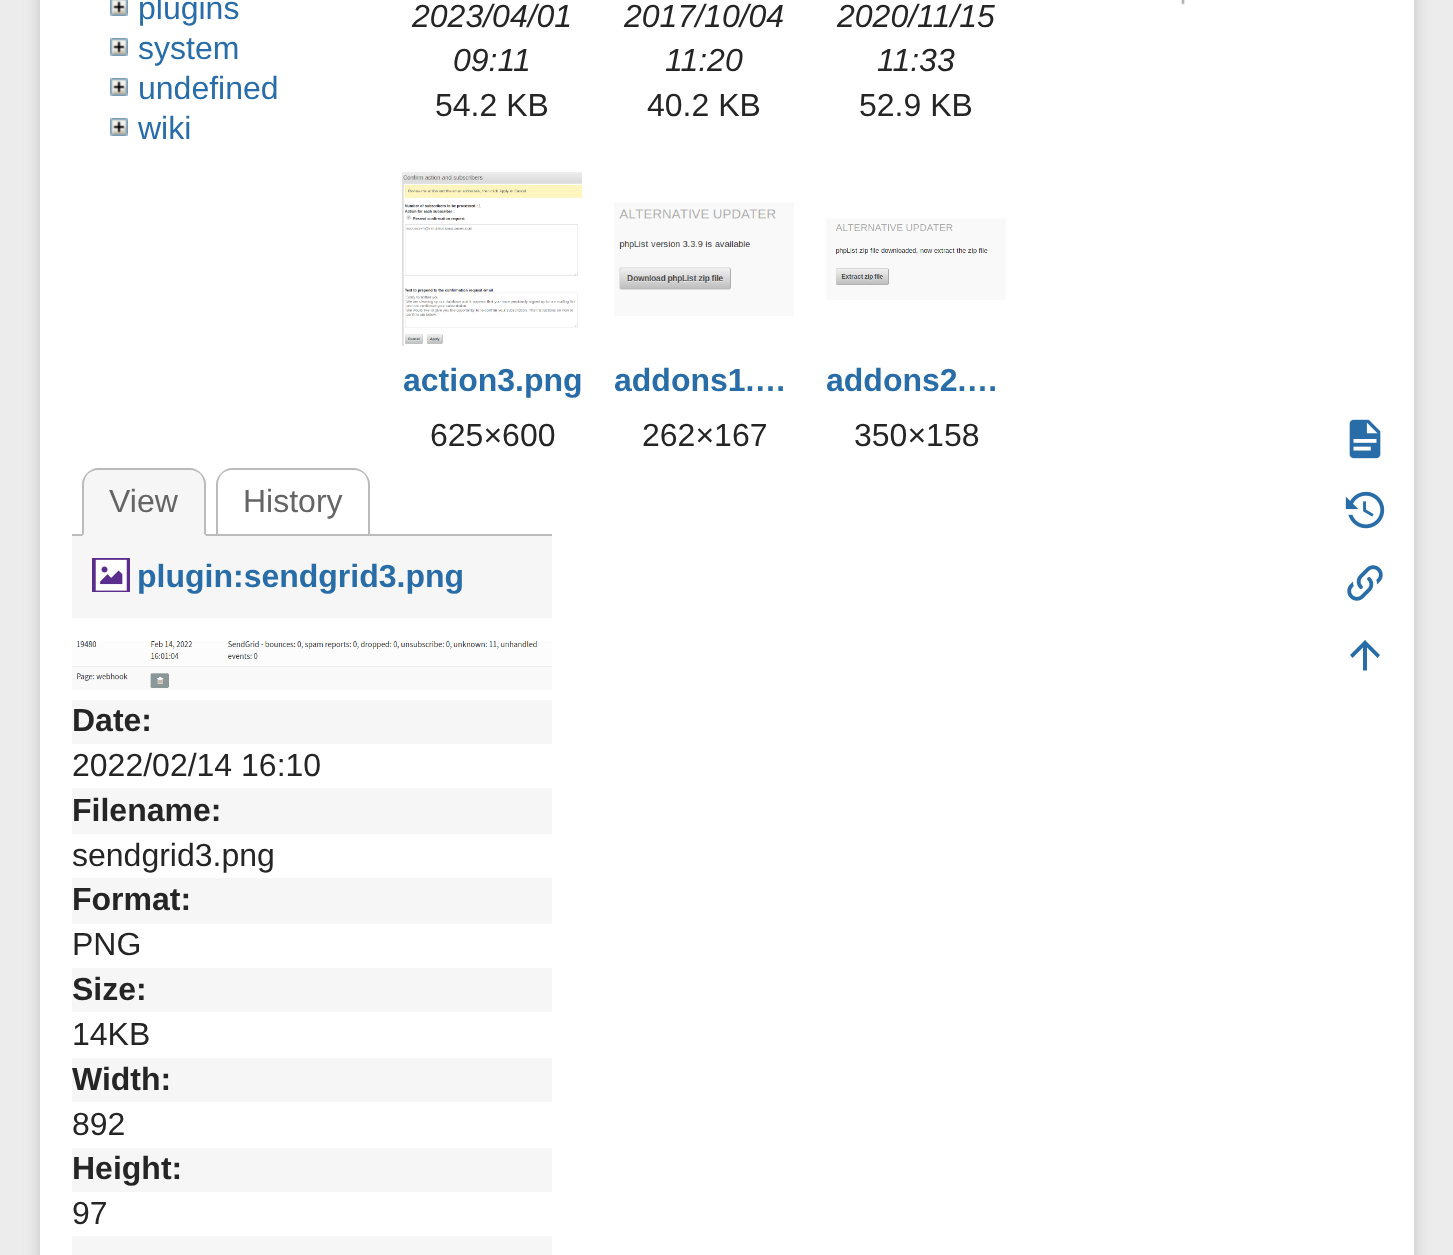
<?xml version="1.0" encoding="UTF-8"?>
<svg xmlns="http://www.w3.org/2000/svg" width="1453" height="1255">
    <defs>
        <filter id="blur1" x="-50%" y="-200%" width="200%" height="500%"><feGaussianBlur stdDeviation="8"/></filter>
    </defs>
    <rect width="100%" height="100%" fill="#ECECEC"/>
    <rect x="40" y="-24" width="1374" height="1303" fill="#999999" fill-opacity="0.5" filter="url(#blur1)"/>
    <rect x="40" y="0" width="1374" height="1255" fill="#FFFFFF"/>
    <image x="110" y="0" width="18" height="16" href="img_01.png"/>
    <text x="138" y="19" font-family="Liberation Sans" font-size="32" fill="#286DA8">plugins</text>
    <image x="110" y="38" width="18" height="18" href="img_02.png"/>
    <text x="138" y="59" font-family="Liberation Sans" font-size="32" fill="#286DA8">system</text>
    <image x="110" y="78" width="18" height="18" href="img_02.png"/>
    <text x="138" y="99" font-family="Liberation Sans" font-size="32" fill="#286DA8">undefined</text>
    <image x="110" y="118" width="18" height="18" href="img_02.png"/>
    <text x="138" y="139" font-family="Liberation Sans" font-size="32" fill="#286DA8">wiki</text>
    <image x="1181" y="0" width="4" height="5" href="img_03.png"/>
    <text x="412" y="27" font-family="Liberation Sans" font-size="32" font-style="italic" fill="#252525">2023/04/01</text>
    <text x="453" y="71" font-family="Liberation Sans" font-size="32" font-style="italic" fill="#252525">09:11</text>
    <text x="435" y="116" font-family="Liberation Sans" font-size="32" fill="#252525">54.2 KB</text>
    <text x="624" y="27" font-family="Liberation Sans" font-size="32" font-style="italic" fill="#252525">2017/10/04</text>
    <text x="665" y="71" font-family="Liberation Sans" font-size="32" font-style="italic" fill="#252525">11:20</text>
    <text x="647" y="116" font-family="Liberation Sans" font-size="32" fill="#252525">40.2 KB</text>
    <text x="837" y="27" font-family="Liberation Sans" font-size="32" font-style="italic" fill="#252525">2020/11/15</text>
    <text x="877" y="71" font-family="Liberation Sans" font-size="32" font-style="italic" fill="#252525">11:33</text>
    <text x="859" y="116" font-family="Liberation Sans" font-size="32" fill="#252525">52.9 KB</text>
    <image x="402" y="172" width="180" height="174" href="img_04.png"/>
    <text x="403" y="391" font-family="Liberation Sans" font-size="32" font-weight="700" fill="#286DA8">action3.png</text>
    <text x="430" y="446" font-family="Liberation Sans" font-size="32" fill="#252525">625×600</text>
    <image x="614" y="202" width="180" height="114" href="img_05.png"/>
    <text x="614" y="391" font-family="Liberation Sans" font-size="32" font-weight="700" fill="#286DA8">addons1.…</text>
    <text x="642" y="446" font-family="Liberation Sans" font-size="32" fill="#252525">262×167</text>
    <image x="826" y="218" width="180" height="82" href="img_06.png"/>
    <text x="826" y="391" font-family="Liberation Sans" font-size="32" font-weight="700" fill="#286DA8">addons2.…</text>
    <text x="854" y="446" font-family="Liberation Sans" font-size="32" fill="#252525">350×158</text>
    <path d="M 232 468 C 228 468 224 470 221 473 L 222 474 C 224 472 228 470 232 470 H 354 C 358 470 362 472 364 474 L 365 473 C 362 470 358 468 354 468 Z" fill="#BBBBBB"/>
    <path d="M 370 536 V 484 C 370 480 368 476 365 473 L 364 474 C 366 476 368 480 368 484 V 534 Z" fill="#BBBBBB"/>
    <path d="M 216 536 L 218 534 V 484 C 218 480 220 476 222 474 L 221 473 C 218 476 216 480 216 484 Z" fill="#BBBBBB"/>
    <rect x="72" y="534" width="480" height="2" fill="#BBBBBB"/>
    <path d="M 98 468 H 190 C 199 468 206 475 206 484 V 536 H 82 V 484 C 82 475 89 468 98 468 Z" fill="#F6F6F6"/>
    <path d="M 98 468 C 94 468 90 470 87 473 L 88 474 C 90 472 94 470 98 470 H 190 C 194 470 198 472 200 474 L 201 473 C 198 470 194 468 190 468 Z" fill="#BBBBBB"/>
    <path d="M 206 536 V 484 C 206 480 204 476 201 473 L 200 474 C 202 476 204 480 204 484 V 534 Z" fill="#BBBBBB"/>
    <path d="M 206 536 L 204 534 H 84 L 82 536 Z" fill="#F6F6F6"/>
    <path d="M 82 536 L 84 534 V 484 C 84 480 86 476 88 474 L 87 473 C 84 476 82 480 82 484 Z" fill="#BBBBBB"/>
    <text x="109" y="512" font-family="Liberation Sans" font-size="32" fill="#656565">View</text>
    <text x="243" y="512" font-family="Liberation Sans" font-size="32" fill="#656565">History</text>
    <rect x="72" y="536" width="480" height="82" fill="#F6F6F6"/>
    <image x="92" y="558" width="38" height="34" href="img_07.png"/>
    <text x="137" y="587" font-family="Liberation Sans" font-size="32" font-weight="700" fill="#286DA8">plugin:sendgrid3.png</text>
    <image x="72" y="641" width="480" height="49" href="img_08.png"/>
    <rect x="72" y="700" width="480" height="44" fill="#F6F6F6"/>
    <text x="72" y="731" font-family="Liberation Sans" font-size="32" font-weight="700" fill="#252525">Date:</text>
    <text x="72" y="776" font-family="Liberation Sans" font-size="32" fill="#252525">2022/02/14 16:10</text>
    <rect x="72" y="788" width="480" height="46" fill="#F6F6F6"/>
    <text x="72" y="821" font-family="Liberation Sans" font-size="32" font-weight="700" fill="#252525">Filename:</text>
    <text x="72" y="866" font-family="Liberation Sans" font-size="32" fill="#252525">sendgrid3.png</text>
    <rect x="72" y="878" width="480" height="46" fill="#F6F6F6"/>
    <text x="72" y="910" font-family="Liberation Sans" font-size="32" font-weight="700" fill="#252525">Format:</text>
    <text x="72" y="955" font-family="Liberation Sans" font-size="32" fill="#252525">PNG</text>
    <rect x="72" y="968" width="480" height="44" fill="#F6F6F6"/>
    <text x="72" y="1000" font-family="Liberation Sans" font-size="32" font-weight="700" fill="#252525">Size:</text>
    <text x="72" y="1045" font-family="Liberation Sans" font-size="32" fill="#252525">14KB</text>
    <rect x="72" y="1058" width="480" height="44" fill="#F6F6F6"/>
    <text x="72" y="1090" font-family="Liberation Sans" font-size="32" font-weight="700" fill="#252525">Width:</text>
    <text x="72" y="1135" font-family="Liberation Sans" font-size="32" fill="#252525">892</text>
    <rect x="72" y="1148" width="480" height="44" fill="#F6F6F6"/>
    <text x="72" y="1179" font-family="Liberation Sans" font-size="32" font-weight="700" fill="#252525">Height:</text>
    <text x="72" y="1224" font-family="Liberation Sans" font-size="32" fill="#252525">97</text>
    <rect x="72" y="1236" width="480" height="19" fill="#F6F6F6"/>
    <image x="1349" y="419" width="32" height="40" href="img_09.png"/>
    <image x="1345" y="491" width="40" height="38" href="img_10.png"/>
    <image x="1347" y="565" width="36" height="36" href="img_11.png"/>
    <path d="M 1367 670.5 H 1363 V 647.5 L 1352.5 658 L 1350 655 L 1365 640 L 1380 655 L 1377.5 658 L 1367 647.5 Z" fill="#286DA8"/>
</svg>
